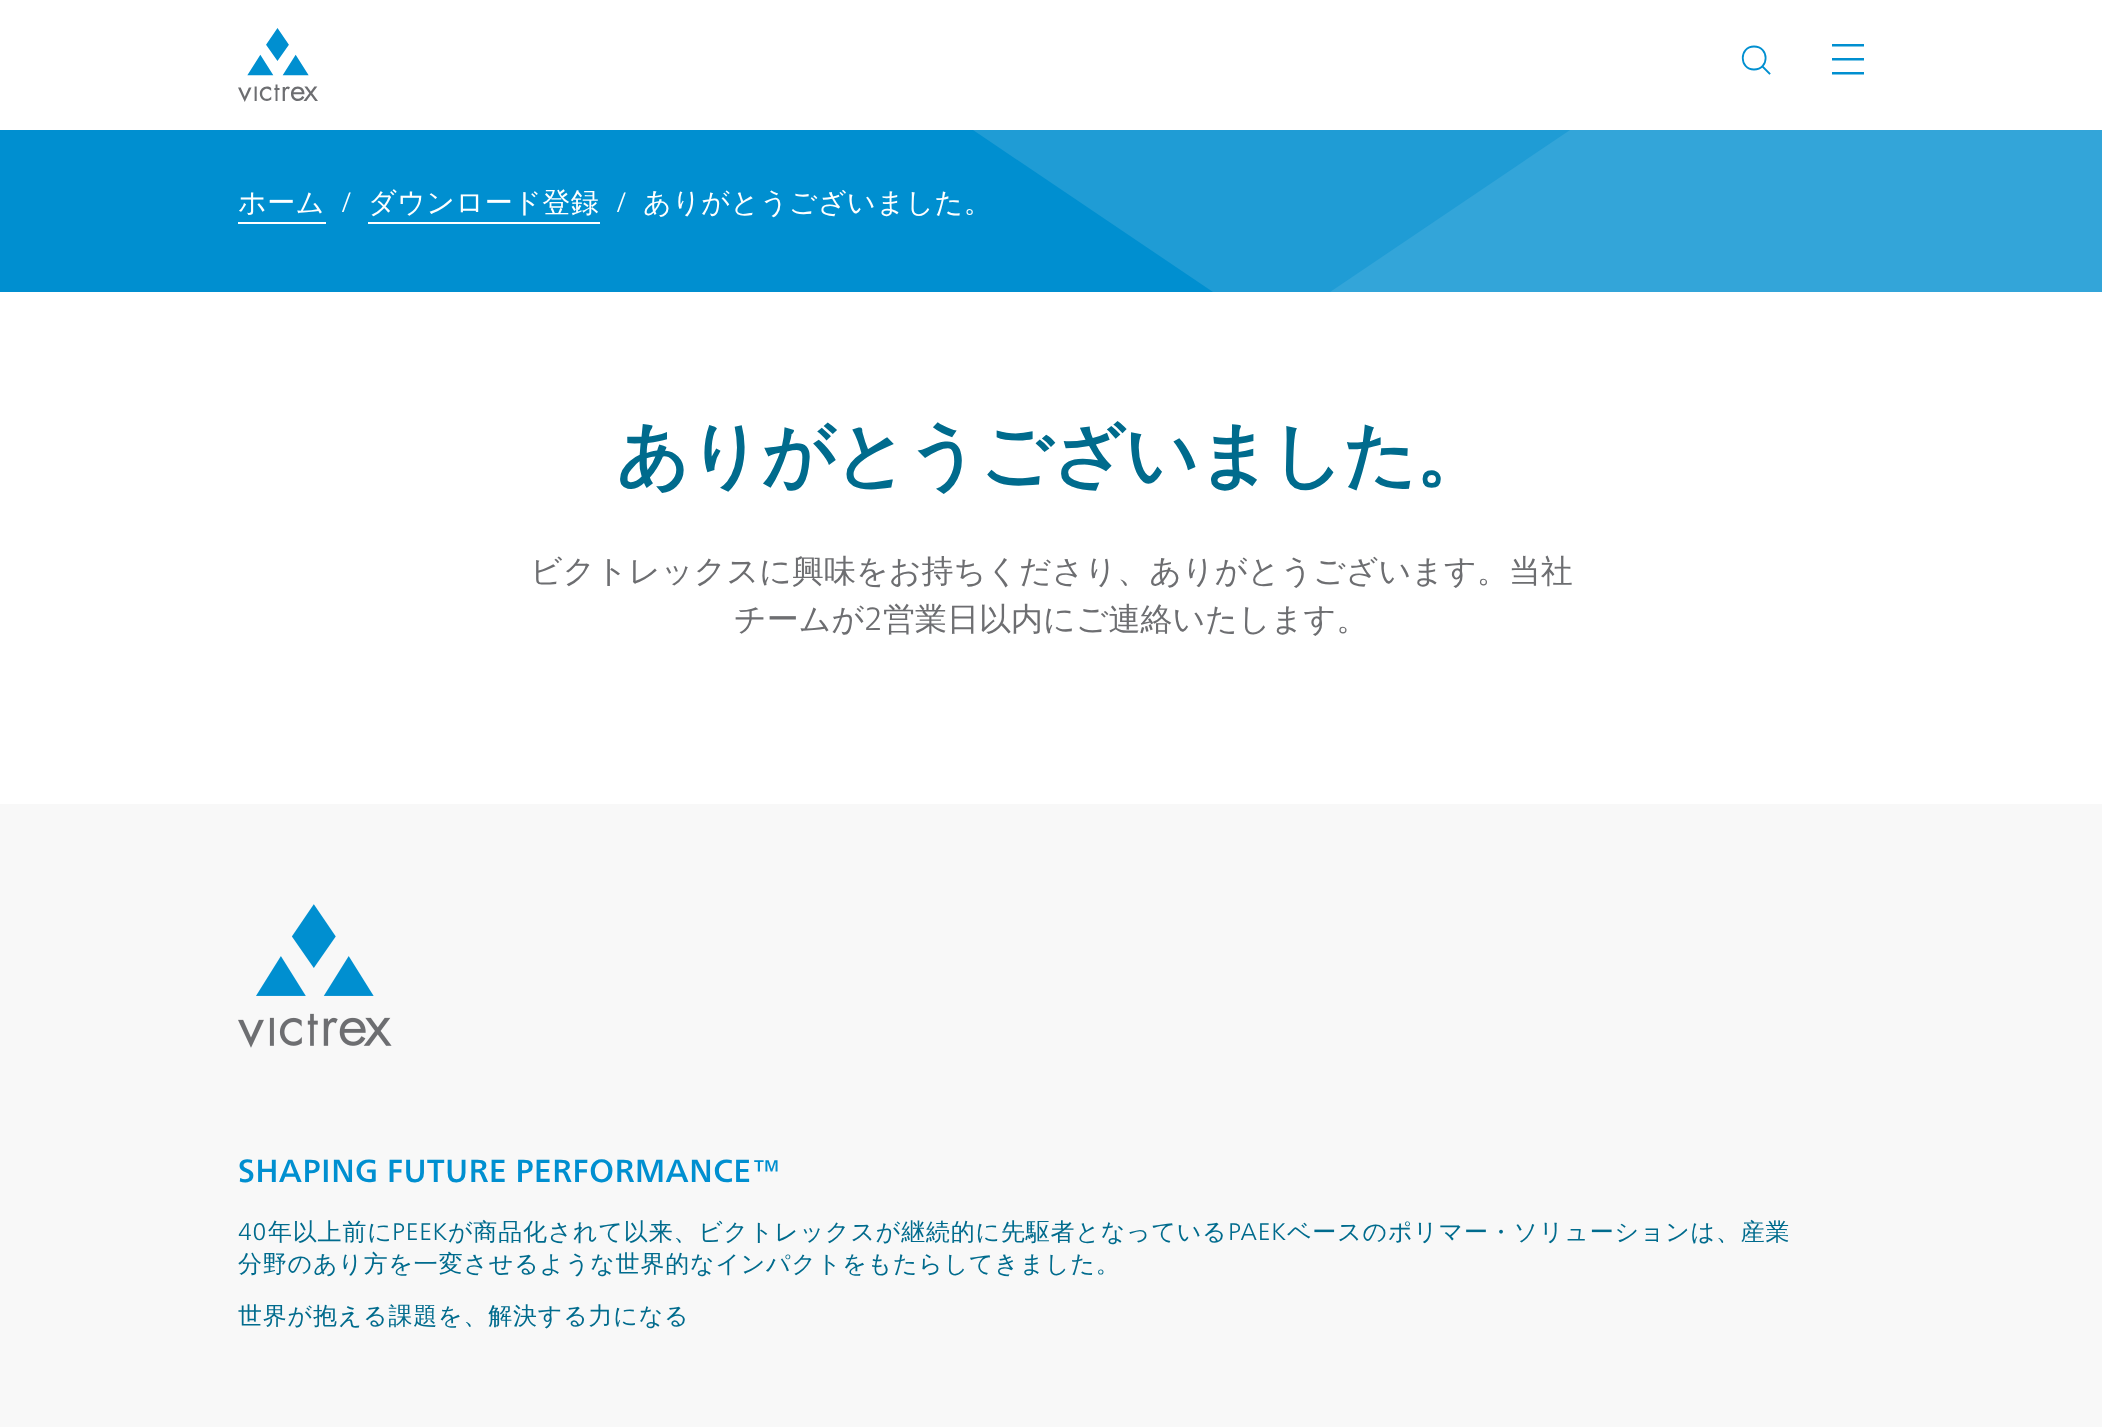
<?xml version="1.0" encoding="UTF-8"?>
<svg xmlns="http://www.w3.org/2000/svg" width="2102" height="1427">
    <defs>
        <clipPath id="clip1"><rect x="1832" y="44" width="32" height="32"/></clipPath>
    </defs>
    <rect width="100%" height="100%" fill="#FFFFFF"/>
    <image x="238" y="28" width="80" height="74" href="img_01.png"/>
    <path d="M 1769.5 73.5 L 1762.5 66.5 M 1754 69.5 C 1769.5 69.5 1769.5 46.5 1754 46.5 C 1739 46.5 1739 69.5 1754 69.5 Z" fill="none" stroke="#008FD0" stroke-width="1.8" stroke-linecap="square"/>
    <g clip-path="url(#clip1)">
        <path d="M 1832 44 H 1871.5 V 46.5 H 1832 Z M 1832 58 H 1871.5 V 60.5 H 1832 Z M 1832 72 H 1871.5 V 74.5 H 1832 Z" fill="#008FD0" fill-rule="evenodd"/>
    </g>
    <rect x="0" y="130" width="1213" height="162" fill="#008FD0"/>
    <path d="M 973 130 H 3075 L 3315 292 H 1213 Z" fill="#1F9CD5"/>
    <text x="238" y="212" font-family="WenQuanYi Zen Hei" font-size="28" font-weight="500" letter-spacing="0.5" fill="#FFFFFF">ホーム</text>
    <rect x="238" y="222" width="88" height="2" fill="#FFFFFF"/>
    <text x="340" y="212" font-family="'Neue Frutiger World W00'" font-size="28" font-weight="300" letter-spacing="0.5" fill="#FFFFFF">/</text>
    <text x="368" y="212" font-family="WenQuanYi Zen Hei" font-size="28" font-weight="500" letter-spacing="0.5" fill="#FFFFFF">ダウンロード登録</text>
    <rect x="368" y="222" width="232" height="2" fill="#FFFFFF"/>
    <text x="615" y="212" font-family="'Neue Frutiger World W00'" font-size="28" font-weight="300" letter-spacing="0.5" fill="#FFFFFF">/</text>
    <text x="643" y="212" font-family="WenQuanYi Zen Hei" font-size="28" font-weight="500" letter-spacing="0.5" fill="#FFFFFF">ありがとうございました。</text>
    <path d="M 1570 130 H 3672 L 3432 292 H 1330 Z" fill="#33A5D9"/>
    <text x="616" y="480" font-family="WenQuanYi Zen Hei" font-size="72" font-weight="700" letter-spacing="-1" fill="#006B8D">ありがとうございました。</text>
    <text x="530" y="582" font-family="WenQuanYi Zen Hei" font-size="32" font-weight="500" fill="#6D6E71">ビクトレックスに興味をお持ちくださり、ありがとうございます。当社</text>
    <text x="734" y="630" font-family="WenQuanYi Zen Hei" font-size="32" font-weight="500" fill="#6D6E71">チームが</text>
    <text x="864" y="630" font-family="'Neue Frutiger World W00'" font-size="32" font-weight="300" fill="#6D6E71">2</text>
    <text x="883" y="630" font-family="WenQuanYi Zen Hei" font-size="32" font-weight="500" fill="#6D6E71">営業日以内にご連絡いたします。</text>
    <rect x="0" y="804" width="2102" height="623" fill="#F8F8F8"/>
    <image x="238" y="904" width="154" height="144" href="img_02.png"/>
    <text x="238" y="1182" font-family="'Neue Frutiger World W00'" font-size="32" font-weight="500" letter-spacing="0.3" fill="#008FD0">SHAPING FUTURE PERFORMANCE™</text>
    <text x="238" y="1240" font-family="'Neue Frutiger World W00'" font-size="24" font-weight="300" letter-spacing="0.8" fill="#006B8D">40</text>
    <text x="268" y="1240" font-family="WenQuanYi Zen Hei" font-size="24" font-weight="500" letter-spacing="0.8" fill="#006B8D">年以上前に</text>
    <text x="392" y="1240" font-family="'Neue Frutiger World W00'" font-size="24" font-weight="300" letter-spacing="0.8" fill="#006B8D">PEEK</text>
    <text x="448" y="1240" font-family="WenQuanYi Zen Hei" font-size="24" font-weight="500" letter-spacing="0.8" fill="#006B8D">が商品化されて以来、ビクトレックスが継続的に先駆者となっている</text>
    <text x="1228" y="1240" font-family="'Neue Frutiger World W00'" font-size="24" font-weight="300" letter-spacing="0.8" fill="#006B8D">PAEK</text>
    <text x="1287" y="1240" font-family="WenQuanYi Zen Hei" font-size="24" font-weight="500" letter-spacing="0.8" fill="#006B8D">ベースのポリマー・ソリューションは、産業</text>
    <text x="238" y="1272" font-family="WenQuanYi Zen Hei" font-size="24" font-weight="500" letter-spacing="0.8" fill="#006B8D">分野のあり方を一変させるような世界的なインパクトをもたらしてきました。</text>
    <text x="238" y="1324" font-family="WenQuanYi Zen Hei" font-size="24" font-weight="500" letter-spacing="0.8" fill="#006B8D">世界が抱える課題を、解決する力になる</text>
</svg>
